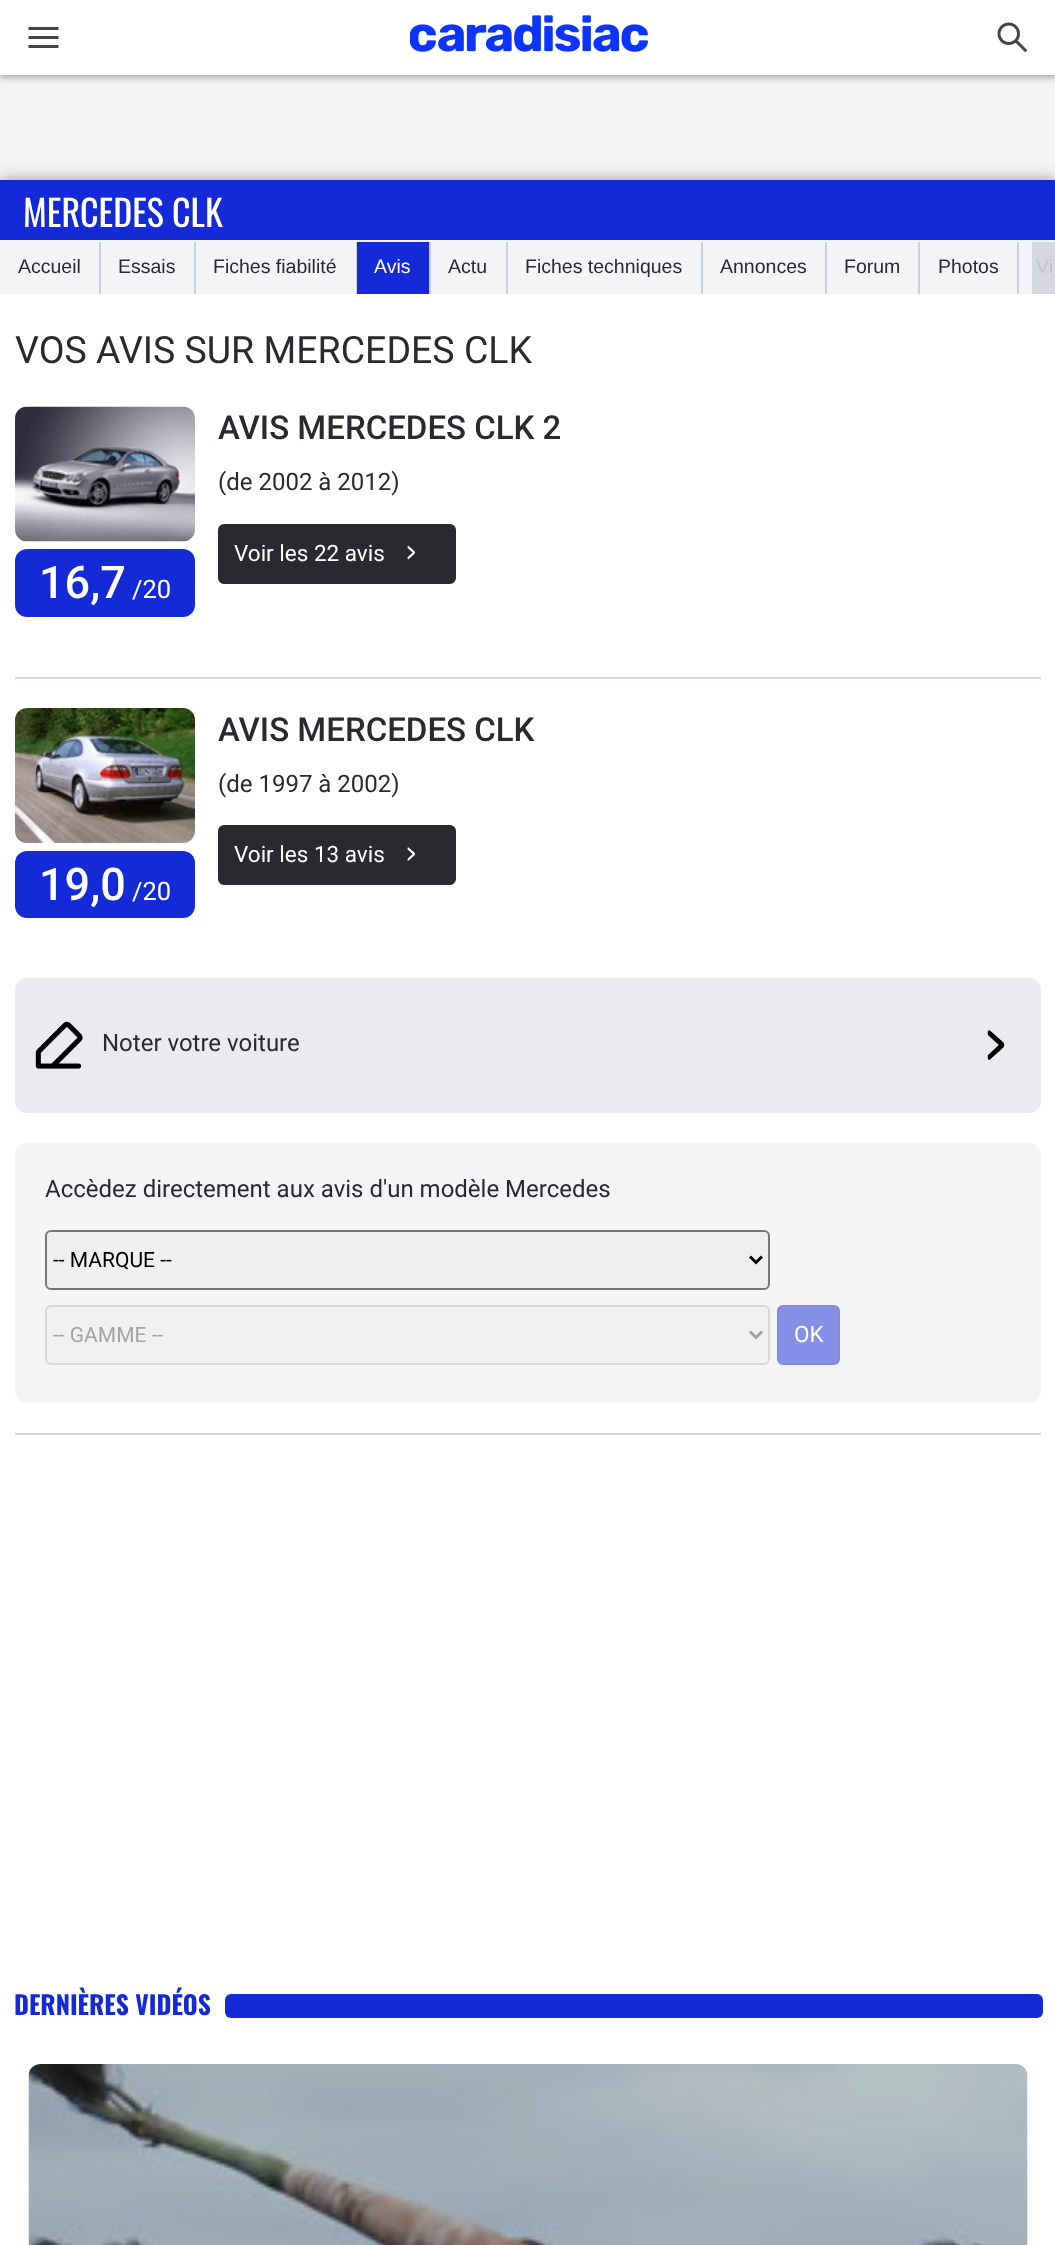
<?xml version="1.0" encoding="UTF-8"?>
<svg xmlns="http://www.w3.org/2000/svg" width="1055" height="2245">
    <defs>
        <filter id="blur1" x="-50%" y="-200%" width="200%" height="500%"><feGaussianBlur stdDeviation="3"/></filter>
        <filter id="blur2" x="-50%" y="-200%" width="200%" height="500%"><feGaussianBlur stdDeviation="7.5"/></filter>
    </defs>
    <rect width="100%" height="100%" fill="#F4F4F7"/>
    <rect x="0" y="3" width="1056" height="75" fill="#000000" fill-opacity="0.3" filter="url(#blur1)"/>
    <rect x="0" y="0" width="1055" height="75" fill="#FFFFFF"/>
    <image x="28" y="27" width="31" height="21" href="img_01.png"/>
    <image x="410" y="15" width="238" height="37" href="img_02.png"/>
    <image x="997" y="22" width="31" height="31" href="img_03.png"/>
    <rect x="0" y="180" width="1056" height="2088" fill="#000000" fill-opacity="0.4" filter="url(#blur2)"/>
    <rect x="0" y="294" width="1055" height="1951" fill="#FFFFFF"/>
    <rect x="0" y="240" width="1055" height="54" fill="#F4F4F7"/>
    <rect x="1032" y="242" width="23" height="52" fill="#D7D7E1"/>
    <rect x="0" y="180" width="1055" height="60" fill="#142AD7"/>
    <text x="23" y="227" font-family="Oswald" font-size="36" fill="#FFFFFF">MERCEDES CLK</text>
    <text x="18" y="273" font-family="Liberation Sans" font-size="19.5" fill="#2A292F">Accueil</text>
    <rect x="99" y="242" width="2" height="52" fill="#CAD0DC"/>
    <text x="118" y="273" font-family="Liberation Sans" font-size="19.5" fill="#2A292F">Essais</text>
    <rect x="194" y="242" width="2" height="52" fill="#CAD0DC"/>
    <text x="213" y="273" font-family="Liberation Sans" font-size="19.5" fill="#2A292F">Fiches fiabilité</text>
    <rect x="356" y="242" width="1" height="52" fill="#CAD0DC"/>
    <rect x="357" y="242" width="72" height="52" fill="#142AD7"/>
    <text x="374" y="273" font-family="Liberation Sans" font-size="19.5" fill="#FFFFFF">Avis</text>
    <rect x="429" y="242" width="2" height="52" fill="#CAD0DC"/>
    <text x="448" y="273" font-family="Liberation Sans" font-size="19.5" fill="#2A292F">Actu</text>
    <rect x="506" y="242" width="2" height="52" fill="#CAD0DC"/>
    <text x="525" y="273" font-family="Liberation Sans" font-size="19.5" fill="#2A292F">Fiches techniques</text>
    <rect x="701" y="242" width="2" height="52" fill="#CAD0DC"/>
    <text x="720" y="273" font-family="Liberation Sans" font-size="19.5" fill="#2A292F">Annonces</text>
    <rect x="825" y="242" width="2" height="52" fill="#CAD0DC"/>
    <text x="844" y="273" font-family="Liberation Sans" font-size="19.5" fill="#2A292F">Forum</text>
    <rect x="918" y="242" width="2" height="52" fill="#CAD0DC"/>
    <text x="938" y="273" font-family="Liberation Sans" font-size="19.5" fill="#2A292F">Photos</text>
    <rect x="1017" y="242" width="2" height="52" fill="#CAD0DC"/>
    <text x="1036" y="273" font-family="Liberation Sans" font-size="19.5" fill="#C3C3CD">Vi</text>
    <text x="15" y="363" font-family="Roboto" font-size="37.5" fill="#2A292F">VOS AVIS SUR MERCEDES CLK</text>
    <text x="218" y="439" font-family="'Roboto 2'" font-size="33" font-weight="500" fill="#2A292F">AVIS MERCEDES CLK 2</text>
    <text x="218" y="490" font-family="Roboto" font-size="24" fill="#2A292F">(de 2002 à 2012)</text>
    <rect x="219" y="525" width="236" height="58" rx="5" fill="#2A292F" stroke="#2A292F" stroke-width="2"/>
    <text x="234" y="561" font-family="Roboto" font-size="22.5" fill="#FFFFFF">Voir les 22 avis</text>
    <image x="407" y="545" width="9" height="15" href="img_04.png"/>
    <image x="15" y="406" width="180" height="136" href="img_05.png"/>
    <rect x="15" y="549" width="180" height="68" rx="12" fill="#142AD7"/>
    <text x="39" y="598" font-family="Roboto" font-size="45" font-weight="500" fill="#FFFFFF">16,7</text>
    <text x="132" y="598" font-family="'Roboto 2'" font-size="25.5" fill="#FFFFFF">/20</text>
    <rect x="15" y="677" width="1026" height="2" fill="#D4D4DE"/>
    <text x="218" y="741" font-family="'Roboto 2'" font-size="33" font-weight="500" fill="#2A292F">AVIS MERCEDES CLK</text>
    <text x="218" y="792" font-family="Roboto" font-size="24" fill="#2A292F">(de 1997 à 2002)</text>
    <rect x="219" y="826" width="236" height="58" rx="5" fill="#2A292F" stroke="#2A292F" stroke-width="2"/>
    <text x="234" y="862" font-family="Roboto" font-size="22.5" fill="#FFFFFF">Voir les 13 avis</text>
    <image x="407" y="847" width="8" height="14" href="img_06.png"/>
    <image x="15" y="708" width="180" height="135" href="img_07.png"/>
    <rect x="15" y="851" width="180" height="67" rx="12" fill="#142AD7"/>
    <text x="39" y="900" font-family="Roboto" font-size="45" font-weight="500" fill="#FFFFFF">19,0</text>
    <text x="132" y="900" font-family="'Roboto 2'" font-size="25.5" fill="#FFFFFF">/20</text>
    <rect x="15" y="978" width="1026" height="135" rx="12" fill="#EAEAF0"/>
    <image x="35" y="1021" width="48" height="48" href="img_08.png"/>
    <text x="102" y="1051" font-family="Roboto" font-size="24" fill="#2A292F">Noter votre voiture</text>
    <image x="987" y="1030" width="18" height="30" href="img_09.png"/>
    <rect x="15" y="1143" width="1026" height="260" rx="12" fill="#F4F4F7"/>
    <text x="45" y="1197" font-family="Roboto" font-size="24" fill="#2A292F">Accèdez directement aux avis d'un modèle Mercedes</text>
    <rect x="46" y="1231" width="723" height="58" rx="5" fill="#EFEFEF" stroke="#767676" stroke-width="2"/>
    <path d="M 750 1256.5 L 756 1262.5 L 762 1256.5" fill="none" stroke="#000000" stroke-width="3"/>
    <text x="53" y="1267" font-family="Roboto" font-size="21" fill="#000000">-- MARQUE --</text>
    <rect x="46" y="1306" width="723" height="58" rx="5" fill="#F1F1F1" stroke="#D8D8D8" stroke-width="2"/>
    <path d="M 750 1331.5 L 756 1337.5 L 762 1331.5" fill="none" stroke="#A3A3A4" stroke-width="3"/>
    <text x="53" y="1342" font-family="Roboto" font-size="21" fill="#A3A3A4">-- GAMME --</text>
    <rect x="778" y="1306" width="61" height="58" rx="5" fill="#848FE7" stroke="#828BD4" stroke-width="2"/>
    <text x="794" y="1342" font-family="Roboto" font-size="22.5" fill="#FFFFFF">OK</text>
    <rect x="15" y="1433" width="1026" height="2" fill="#D4D4DE"/>
    <text x="14" y="2015" font-family="Oswald" font-size="25.5" font-weight="700" fill="#142AD7">DERNIÈRES VIDÉOS</text>
    <rect x="225" y="1994" width="818" height="24" rx="6" fill="#142AD7"/>
    <image x="28" y="2064" width="1000" height="181" href="img_10.png"/>
</svg>
